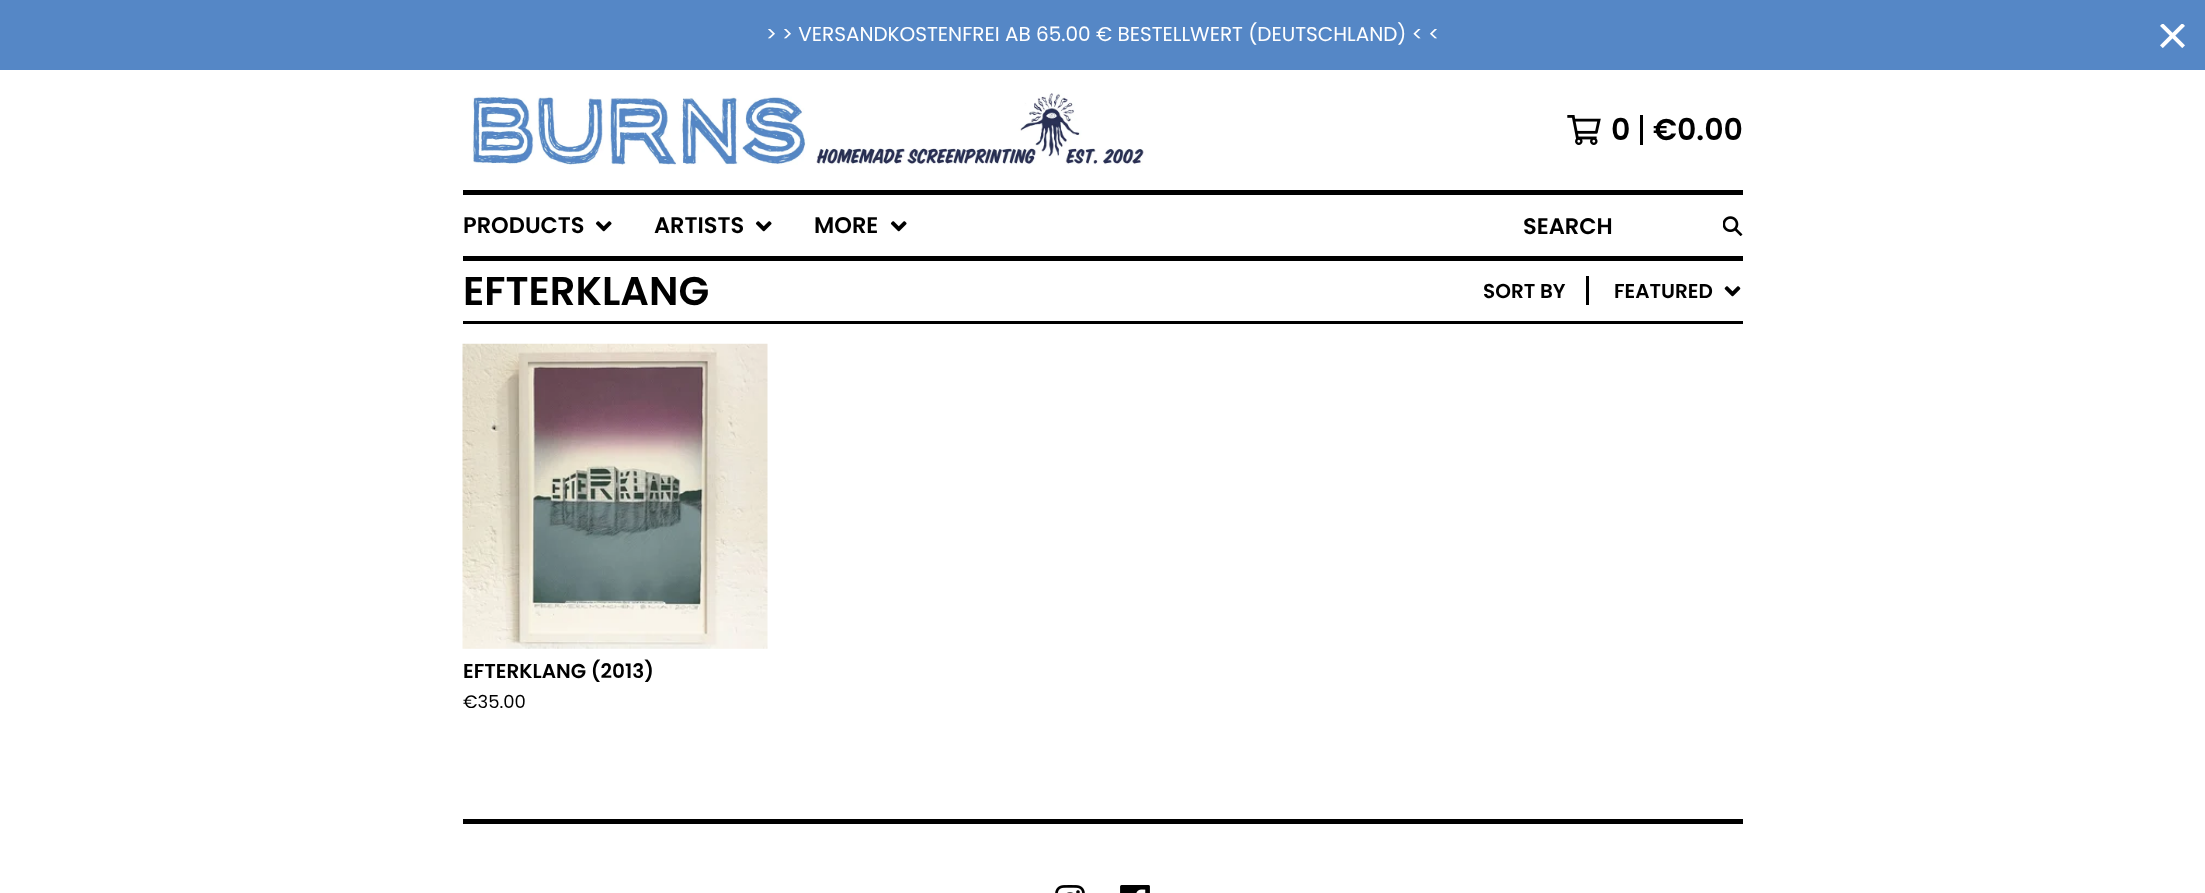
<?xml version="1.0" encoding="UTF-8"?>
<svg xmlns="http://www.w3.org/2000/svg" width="2205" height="893">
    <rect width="100%" height="100%" fill="#FFFFFF"/>
    <rect x="0" y="0" width="2205" height="70" fill="#5587C6"/>
    <text x="766" y="41" font-family="Poppins" font-size="20" fill="#FFFFFF">&gt; &gt; VERSANDKOSTENFREI AB 65.00 € BESTELLWERT (DEUTSCHLAND) &lt; &lt;</text>
    <image x="2160" y="24" width="25" height="24" href="img_01.png"/>
    <rect x="463" y="190" width="1280" height="5" fill="#000000"/>
    <image x="472" y="93" width="674" height="72" href="img_02.png"/>
    <image x="1567" y="115" width="34" height="30" href="img_03.png"/>
    <rect x="1640" y="115" width="3" height="30" fill="#000000"/>
    <text x="1611" y="140" font-family="Poppins" font-size="30" font-weight="600" fill="#000000">0</text>
    <text x="1653" y="140" font-family="Poppins" font-size="30" font-weight="600" fill="#000000">€0.00</text>
    <rect x="463" y="256" width="1280" height="5" fill="#000000"/>
    <text x="463" y="233" font-family="Poppins" font-size="22.5" font-weight="600" fill="#000000">PRODUCTS</text>
    <image x="595" y="221" width="17" height="11" href="img_04.png"/>
    <text x="654" y="233" font-family="Poppins" font-size="22.5" font-weight="600" fill="#000000">ARTISTS</text>
    <image x="755" y="221" width="17" height="11" href="img_04.png"/>
    <text x="814" y="233" font-family="Poppins" font-size="22.5" font-weight="600" fill="#000000">MORE</text>
    <image x="890" y="221" width="17" height="11" href="img_04.png"/>
    <text x="1523" y="234" font-family="Poppins" font-size="22.5" font-weight="600" fill="#000000">SEARCH</text>
    <image x="1723" y="216" width="20" height="20" href="img_05.png"/>
    <rect x="463" y="321" width="1280" height="3" fill="#000000"/>
    <text x="463" y="305" font-family="Poppins" font-size="40" font-weight="600" fill="#000000">EFTERKLANG</text>
    <text x="1483" y="298" font-family="Poppins" font-size="20" font-weight="600" fill="#000000">SORT BY</text>
    <rect x="1586" y="276" width="3" height="29" fill="#000000"/>
    <text x="1614" y="298" font-family="Poppins" font-size="20" font-weight="600" fill="#000000">FEATURED</text>
    <image x="1724" y="286" width="17" height="11" href="img_06.png"/>
    <image x="462" y="343" width="306" height="306" href="img_07.png"/>
    <text x="463" y="678" font-family="Poppins" font-size="20" font-weight="600" fill="#000000">EFTERKLANG (2013)</text>
    <text x="463" y="708" font-family="Poppins" font-size="18" fill="#000000">€35.00</text>
    <rect x="463" y="819" width="1280" height="5" fill="#000000"/>
    <image x="1055" y="885" width="30" height="8" href="img_08.png"/>
    <image x="1120" y="885" width="30" height="8" href="img_09.png"/>
</svg>
